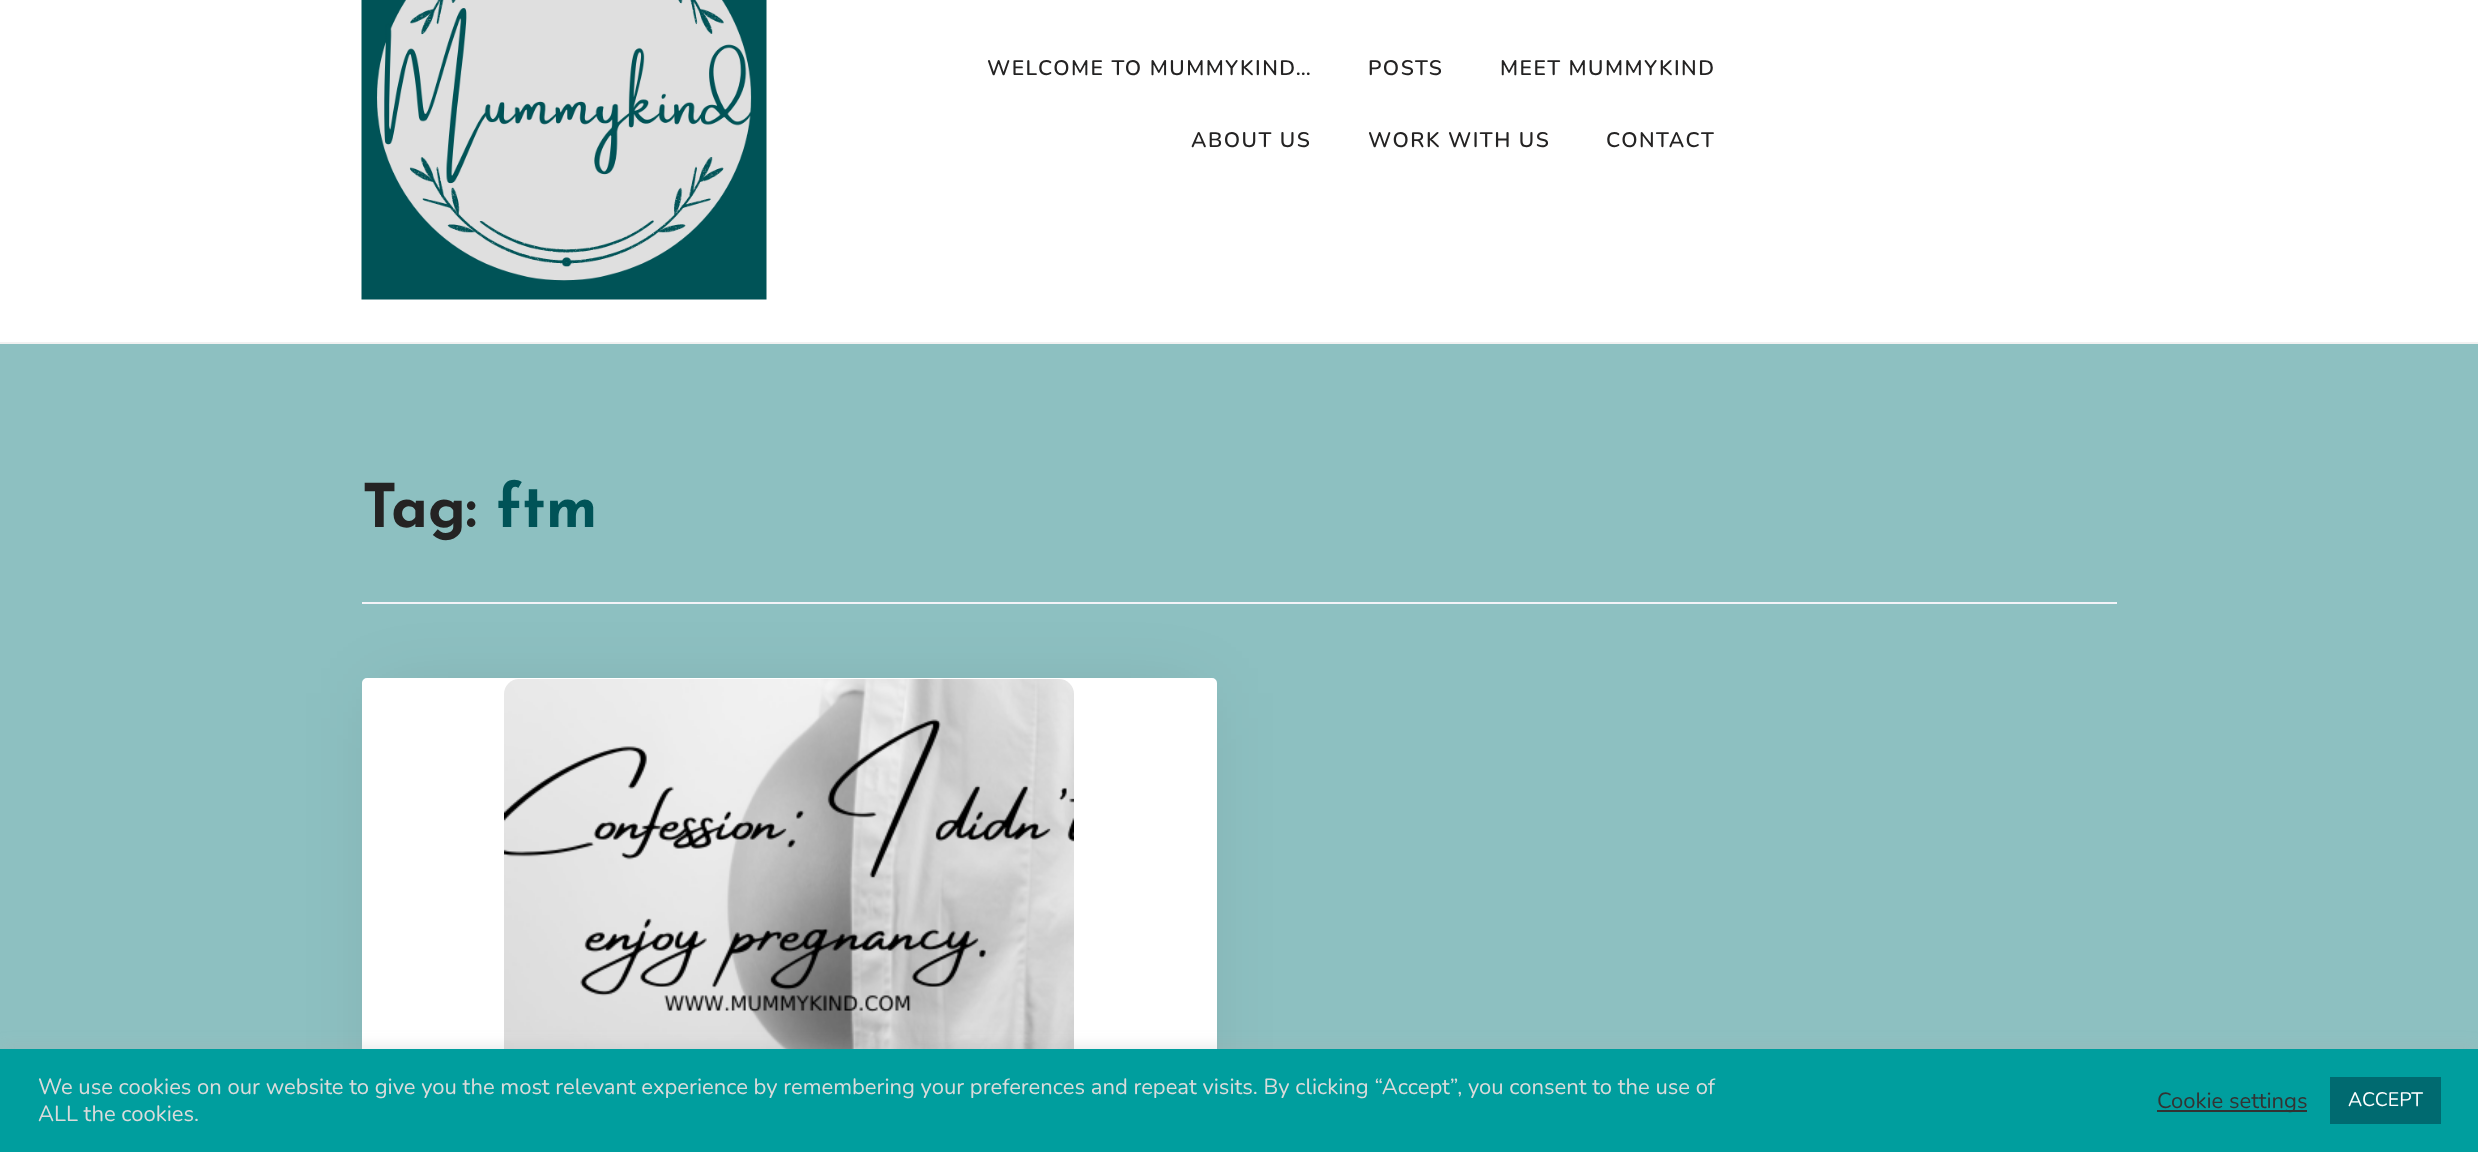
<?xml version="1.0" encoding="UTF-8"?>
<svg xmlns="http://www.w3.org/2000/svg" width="2478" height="1152">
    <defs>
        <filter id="blur1" x="-50%" y="-200%" width="200%" height="500%"><feGaussianBlur stdDeviation="37.5"/></filter>
        <filter id="blur2" x="-50%" y="-200%" width="200%" height="500%"><feGaussianBlur stdDeviation="7.5"/></filter>
    </defs>
    <rect width="100%" height="100%" fill="#8DC0C1"/>
    <rect x="0" y="0" width="2478" height="342" fill="#FFFFFF"/>
    <rect x="0" y="342" width="2478" height="2" fill="#F1F1F1"/>
    <image x="361" y="0" width="406" height="300" href="img_01.png"/>
    <text x="987" y="75" font-family="Nunito" font-size="21" font-weight="600" letter-spacing="1.5" fill="#242323">WELCOME TO MUMMYKIND…</text>
    <text x="1368" y="75" font-family="Nunito" font-size="21" font-weight="600" letter-spacing="1.5" fill="#242323">POSTS</text>
    <text x="1500" y="75" font-family="Nunito" font-size="21" font-weight="600" letter-spacing="1.5" fill="#242323">MEET MUMMYKIND</text>
    <text x="1191" y="147" font-family="Nunito" font-size="21" font-weight="600" letter-spacing="1.5" fill="#242323">ABOUT US</text>
    <text x="1368" y="147" font-family="Nunito" font-size="21" font-weight="600" letter-spacing="1.5" fill="#242323">WORK WITH US</text>
    <text x="1606" y="147" font-family="Nunito" font-size="21" font-weight="600" letter-spacing="1.5" fill="#242323">CONTACT</text>
    <rect x="362" y="602" width="1755" height="2" fill="#F3F3F8"/>
    <text x="362" y="527" font-family="Josefin Sans" font-size="60" font-weight="700" fill="#242323">Tag:</text>
    <text x="496" y="527" font-family="Josefin Sans" font-size="60" font-weight="700" fill="#005357">ftm</text>
    <rect x="377" y="693" width="825" height="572" fill="#000000" fill-opacity="0.1" filter="url(#blur1)"/>
    <rect x="363" y="679" width="853" height="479" rx="4" fill="#FFFFFF" stroke="#FFFFFF" stroke-width="2"/>
    <image x="504" y="679" width="570" height="370" href="img_02.png"/>
    <rect x="0" y="1047" width="2478" height="104" fill="#ACABAB" fill-opacity="0.3" filter="url(#blur2)"/>
    <rect x="0" y="1049" width="2478" height="103" fill="#009E9E"/>
    <text font-family="Nunito" font-size="22" fill="#DBDBDB">
        <tspan x="38" y="1094">We use cookies on our website to give you the most relevant experience by remembering your preferences and repeat visits. By clicking “Accept”, you consent to the use of</tspan>
        <tspan x="38" y="1121">ALL the cookies.</tspan>
    </text>
    <rect x="2157" y="1110" width="150" height="2" fill="#333333"/>
    <text x="2157" y="1108" font-family="Nunito" font-size="22" fill="#333333">Cookie settings</text>
    <rect x="2330" y="1077" width="111" height="47" fill="#006A70"/>
    <text x="2348" y="1106" font-family="Nunito" font-size="19.5" fill="#FFFFFF">ACCEPT</text>
</svg>
